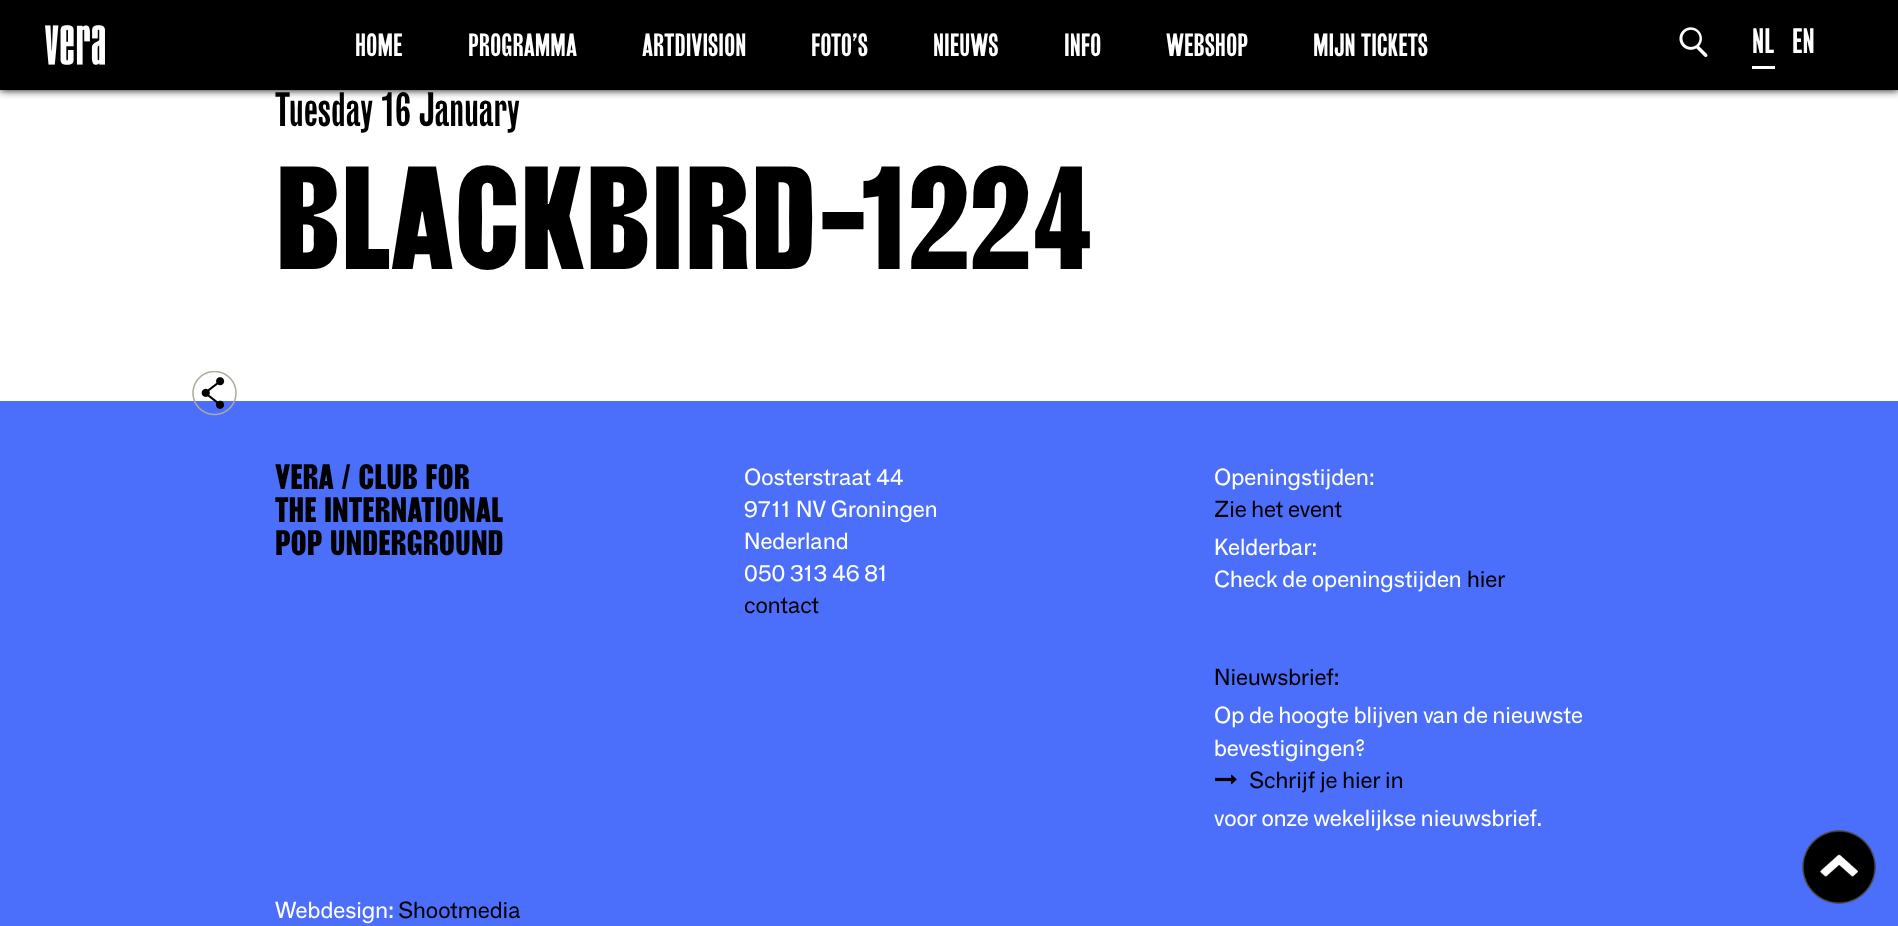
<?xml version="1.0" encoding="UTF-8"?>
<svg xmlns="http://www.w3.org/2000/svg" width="1898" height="926">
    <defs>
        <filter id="blur1" x="-50%" y="-200%" width="200%" height="500%"><feGaussianBlur stdDeviation="4"/></filter>
    </defs>
    <rect width="100%" height="100%" fill="#4B6FFB"/>
    <rect x="0" y="90" width="1898" height="311" fill="#FFFFFF"/>
    <rect x="0" y="0" width="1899" height="90" fill="#000000" filter="url(#blur1)"/>
    <rect x="0" y="0" width="1898" height="90" fill="#000000"/>
    <image x="45" y="25" width="60" height="40" href="img_01.png"/>
    <text x="355" y="56" font-family="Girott" font-size="30" fill="#FFFFFF">HOME</text>
    <text x="468" y="56" font-family="Girott" font-size="30" fill="#FFFFFF">PROGRAMMA</text>
    <text x="642" y="56" font-family="Girott" font-size="30" fill="#FFFFFF">ARTDIVISION</text>
    <text x="811" y="56" font-family="Girott" font-size="30" fill="#FFFFFF">FOTO’S</text>
    <text x="933" y="56" font-family="Girott" font-size="30" fill="#FFFFFF">NIEUWS</text>
    <text x="1064" y="56" font-family="Girott" font-size="30" fill="#FFFFFF">INFO</text>
    <text x="1166" y="56" font-family="Girott" font-size="30" fill="#FFFFFF">WEBSHOP</text>
    <text x="1313" y="56" font-family="Girott" font-size="30" fill="#FFFFFF">MIJN TICKETS</text>
    <image x="1679" y="27" width="29" height="30" href="img_02.png"/>
    <text x="1752" y="53" font-family="Girott" font-size="33" fill="#FFFFFF">NL</text>
    <rect x="1752" y="66" width="23" height="3" fill="#FFFFFF"/>
    <text x="1792" y="53" font-family="Girott" font-size="33" fill="#FFFFFF">EN</text>
    <text x="275" y="126" font-family="Girott" font-size="45" fill="#000000">Tuesday 16 January</text>
    <text x="275" y="269" font-family="Girott" font-size="136.75" font-weight="700" fill="#000000">BLACKBIRD-1224</text>
    <image x="192" y="371" width="45" height="45" href="img_03.png"/>
    <text font-family="Girott" font-size="33" font-weight="700" fill="#000000">
        <tspan x="275" y="489">VERA / CLUB FOR</tspan>
        <tspan x="275" y="522">THE INTERNATIONAL</tspan>
        <tspan x="275" y="555">POP UNDERGROUND</tspan>
    </text>
    <text font-family="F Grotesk" font-size="22.5" fill="#FFFFFF">
        <tspan x="744" y="485">Oosterstraat 44</tspan>
        <tspan x="744" y="517">9711 NV Groningen</tspan>
        <tspan x="744" y="549">Nederland</tspan>
        <tspan x="744" y="581">050 313 46 81</tspan>
    </text>
    <text x="744" y="613" font-family="F Grotesk" font-size="22.5" fill="#000000">contact</text>
    <text x="1214" y="485" font-family="F Grotesk" font-size="22.5" fill="#FFFFFF">Openingstijden:</text>
    <text x="1214" y="517" font-family="F Grotesk" font-size="22.5" fill="#000000">Zie het event</text>
    <text font-family="F Grotesk" font-size="22.5" fill="#FFFFFF">
        <tspan x="1214" y="555">Kelderbar:</tspan>
        <tspan x="1214" y="587">Check de openingstijden</tspan>
    </text>
    <text x="1467" y="587" font-family="F Grotesk" font-size="22.5" fill="#000000">hier</text>
    <text x="1214" y="685" font-family="F Grotesk" font-size="22.5" fill="#000000">Nieuwsbrief:</text>
    <text font-family="F Grotesk" font-size="22.5" fill="#FFFFFF">
        <tspan x="1214" y="723">Op de hoogte blijven van de nieuwste</tspan>
        <tspan x="1214" y="756">bevestigingen?</tspan>
    </text>
    <image x="1215" y="774" width="22" height="11" href="img_04.png"/>
    <text x="1249" y="788" font-family="F Grotesk" font-size="22.5" fill="#000000">Schrijf je hier in</text>
    <text x="1214" y="826" font-family="F Grotesk" font-size="22.5" fill="#FFFFFF">voor onze wekelijkse nieuwsbrief.</text>
    <text x="275" y="918" font-family="F Grotesk" font-size="22.5" fill="#FFFFFF">Webdesign:</text>
    <text x="398" y="918" font-family="F Grotesk" font-size="22.5" fill="#000000">Shootmedia</text>
    <image x="1802" y="830" width="74" height="74" href="img_05.png"/>
</svg>
